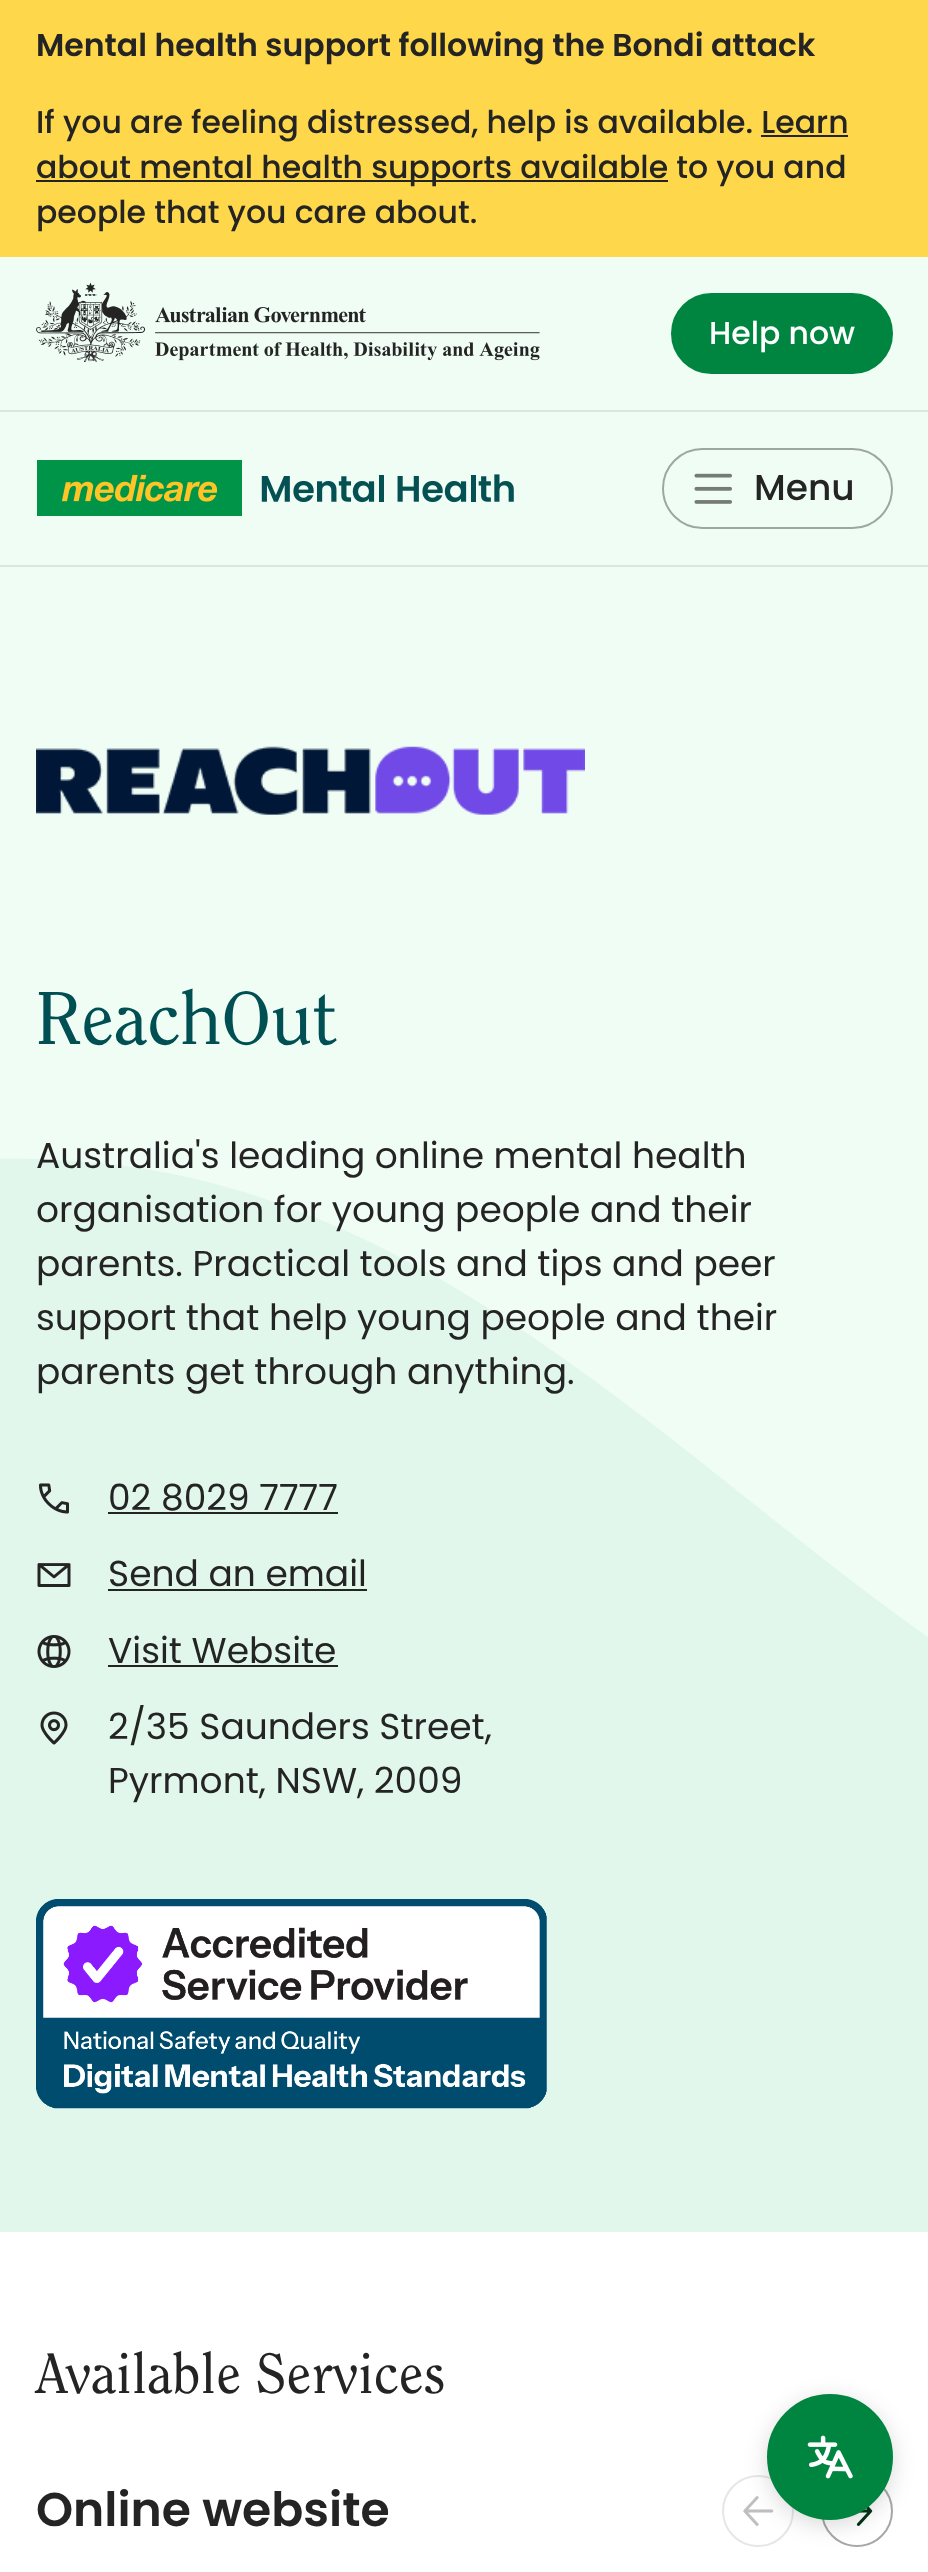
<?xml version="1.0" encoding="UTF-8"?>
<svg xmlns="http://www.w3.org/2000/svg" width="928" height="2572">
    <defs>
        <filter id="blur1" x="-50%" y="-200%" width="200%" height="500%"><feGaussianBlur stdDeviation="11"/></filter>
    </defs>
    <rect width="100%" height="100%" fill="#FFFFFF"/>
    <rect x="0" y="0" width="928" height="257" fill="#FFD74A"/>
    <text x="36" y="56" font-family="Poppins" font-size="31.5" font-weight="600" fill="#242424">Mental health support following the Bondi attack</text>
    <text x="36" y="133" font-family="Poppins" font-size="31.5" font-weight="500" fill="#242424">If you are feeling distressed, help is available. Learn</text>
    <rect x="36" y="180" width="632" height="2" fill="#242424"/>
    <text x="36" y="178" font-family="Poppins" font-size="31.5" font-weight="500" fill="#242424">about mental health supports available to you and</text>
    <rect x="761" y="135" width="87" height="2" fill="#242424"/>
    <text x="36" y="223" font-family="Poppins" font-size="31.5" font-weight="500" fill="#242424">people that you care about.</text>
    <rect x="0" y="257" width="928" height="308" fill="#F0FDF5"/>
    <rect x="0" y="410" width="928" height="2" fill="#DDE4E1"/>
    <image x="36" y="282" width="504" height="80" href="img_01.png"/>
    <rect x="672" y="294" width="220" height="79" rx="39.5" fill="#008540" stroke="#008540" stroke-width="2"/>
    <text x="709" y="344" font-family="Poppins" font-size="31.5" font-weight="500" fill="#FFFFFF">Help now</text>
    <rect x="0" y="565" width="928" height="2" fill="#DDE4E1"/>
    <image x="37" y="460" width="205" height="56" href="img_02.png"/>
    <image x="261" y="474" width="253" height="29" href="img_03.png"/>
    <rect x="663" y="449" width="229" height="79" rx="39.5" fill="none" stroke="#9EA6A1" stroke-width="2"/>
    <image x="694" y="473" width="38" height="31" href="img_04.png"/>
    <text x="754" y="500" font-family="Poppins" font-size="36" font-weight="500" fill="#242424">Menu</text>
    <circle cx="758" cy="2511" r="35" fill="none" stroke="#E6E6E6" stroke-width="2"/>
    <image x="743" y="2496" width="31" height="30" href="img_13.png"/>
    <circle cx="857" cy="2511" r="35" fill="none" stroke="#A7A7A7" stroke-width="2"/>
    <image x="856" y="2506" width="17" height="20" href="img_14.png"/>
    <rect x="767" y="2399" width="126" height="126" rx="63" fill="#000000" fill-opacity="0.15" filter="url(#blur1)"/>
    <circle cx="830" cy="2457" r="62" fill="#008540" stroke="#008540" stroke-width="2"/>
    <image x="807" y="2435" width="46" height="44" href="img_05.png"/>
    <image x="0" y="567" width="928" height="1665" href="img_06.png"/>
    <image x="36" y="746" width="549" height="69" href="img_07.png"/>
    <text x="36" y="1044" font-family="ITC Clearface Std" font-size="74.25" fill="#004F53">ReachOut</text>
    <text font-family="Poppins" font-size="36" fill="#242424">
        <tspan x="36" y="1168">Australia's leading online mental health</tspan>
        <tspan x="36" y="1222">organisation for young people and their</tspan>
        <tspan x="36" y="1276">parents. Practical tools and tips and peer</tspan>
        <tspan x="36" y="1330">support that help young people and their</tspan>
        <tspan x="36" y="1384">parents get through anything.</tspan>
    </text>
    <image x="39" y="1483" width="30" height="31" href="img_08.png"/>
    <text x="108" y="1510" font-family="Poppins" font-size="36" fill="#242424">02 8029 7777</text>
    <rect x="108" y="1512" width="230" height="2" fill="#242424"/>
    <image x="37" y="1563" width="34" height="24" href="img_09.png"/>
    <text x="108" y="1586" font-family="Poppins" font-size="36" fill="#242424">Send an email</text>
    <rect x="108" y="1589" width="259" height="2" fill="#242424"/>
    <image x="37" y="1635" width="34" height="33" href="img_10.png"/>
    <text x="108" y="1663" font-family="Poppins" font-size="36" fill="#242424">Visit Website</text>
    <rect x="108" y="1665" width="230" height="2" fill="#242424"/>
    <image x="40" y="1711" width="28" height="34" href="img_11.png"/>
    <text font-family="Poppins" font-size="36" fill="#242424">
        <tspan x="108" y="1739">2/35 Saunders Street,</tspan>
        <tspan x="108" y="1793">Pyrmont, NSW, 2009</tspan>
    </text>
    <image x="36" y="1899" width="511" height="210" href="img_12.png"/>
    <text x="36" y="2393" font-family="ITC Clearface Std" font-size="56.25" fill="#242424">Available Services</text>
    <text x="36" y="2526" font-family="Poppins" font-size="47.25" font-weight="600" fill="#242424">Online website</text>
</svg>
